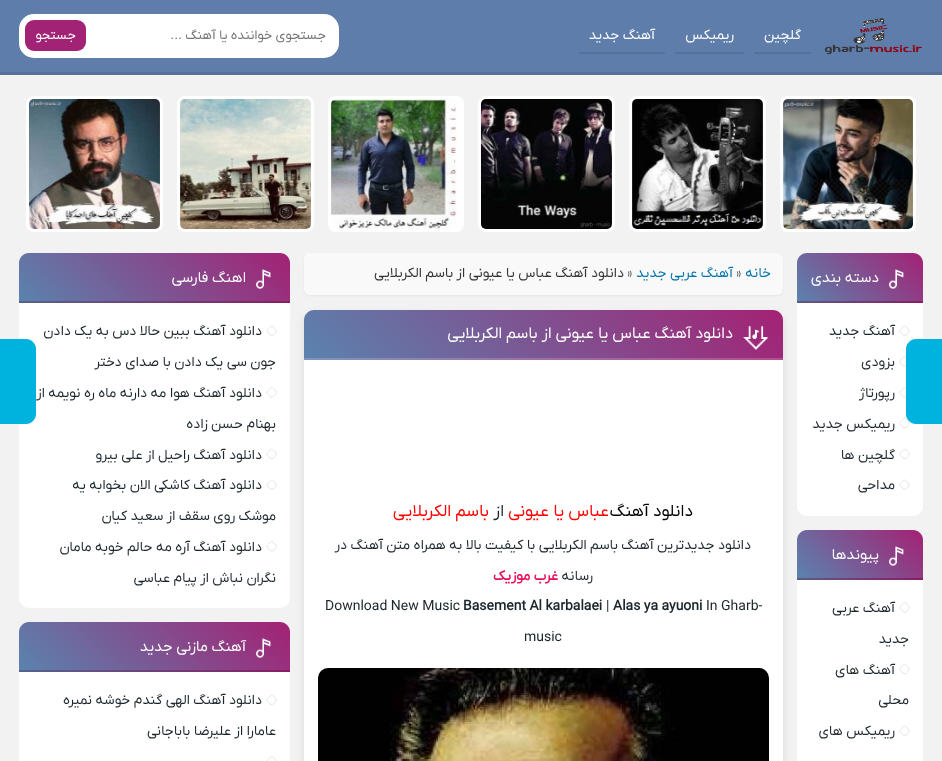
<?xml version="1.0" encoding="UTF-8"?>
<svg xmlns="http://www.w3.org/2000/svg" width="942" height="761">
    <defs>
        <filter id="blur1" x="-50%" y="-200%" width="200%" height="500%"><feGaussianBlur stdDeviation="1"/></filter>
        <filter id="blur2" x="-50%" y="-200%" width="200%" height="500%"><feGaussianBlur stdDeviation="5"/></filter>
        <linearGradient id="g1" gradientUnits="userSpaceOnUse" x1="412" y1="466" x2="675" y2="202"><stop offset="0" stop-color="#5A83AE"/><stop offset="1" stop-color="#A42174"/></linearGradient>
        <linearGradient id="g2" gradientUnits="userSpaceOnUse" x1="412" y1="514" x2="675" y2="250"><stop offset="0" stop-color="#7B9CBE"/><stop offset="1" stop-color="#B64D90"/></linearGradient>
        <linearGradient id="g3" gradientUnits="userSpaceOnUse" x1="817" y1="321" x2="904" y2="234"><stop offset="0" stop-color="#5A83AE"/><stop offset="1" stop-color="#A42174"/></linearGradient>
        <linearGradient id="g4" gradientUnits="userSpaceOnUse" x1="817" y1="369" x2="904" y2="282"><stop offset="0" stop-color="#4D6F94"/><stop offset="1" stop-color="#8B1C63"/></linearGradient>
        <linearGradient id="g5" gradientUnits="userSpaceOnUse" x1="817" y1="598" x2="904" y2="511"><stop offset="0" stop-color="#5A83AE"/><stop offset="1" stop-color="#A42174"/></linearGradient>
        <linearGradient id="g6" gradientUnits="userSpaceOnUse" x1="817" y1="646" x2="904" y2="559"><stop offset="0" stop-color="#4D6F94"/><stop offset="1" stop-color="#8B1C63"/></linearGradient>
        <linearGradient id="g7" gradientUnits="userSpaceOnUse" x1="75" y1="357" x2="234" y2="197"><stop offset="0" stop-color="#5A83AE"/><stop offset="1" stop-color="#A42174"/></linearGradient>
        <linearGradient id="g8" gradientUnits="userSpaceOnUse" x1="75" y1="405" x2="234" y2="245"><stop offset="0" stop-color="#4D6F94"/><stop offset="1" stop-color="#8B1C63"/></linearGradient>
        <linearGradient id="g9" gradientUnits="userSpaceOnUse" x1="75" y1="726" x2="234" y2="566"><stop offset="0" stop-color="#5A83AE"/><stop offset="1" stop-color="#A42174"/></linearGradient>
        <linearGradient id="g10" gradientUnits="userSpaceOnUse" x1="75" y1="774" x2="234" y2="614"><stop offset="0" stop-color="#4D6F94"/><stop offset="1" stop-color="#8B1C63"/></linearGradient>
    </defs>
    <rect width="100%" height="100%" fill="#F2F2F2"/>
    <rect x="0" y="0" width="942" height="72" fill="#5E7DAB"/>
    <rect x="0" y="72" width="942" height="3" fill="#55719A"/>
    <image x="824" y="18" width="98" height="37" href="img_01.png"/>
    <text x="801" y="39" font-family="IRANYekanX" font-size="14" direction="rtl" fill="#FFFFFF">گلچین</text>
    <rect x="754" y="52" width="57" height="2" fill="#55719A"/>
    <text x="734" y="39" font-family="IRANYekanX" font-size="14" direction="rtl" fill="#FFFFFF">ریمیکس</text>
    <rect x="675" y="52" width="69" height="2" fill="#55719A"/>
    <text x="655" y="39" font-family="IRANYekanX" font-size="14" direction="rtl" fill="#FFFFFF">آهنگ جدید</text>
    <rect x="579" y="52" width="86" height="2" fill="#55719A"/>
    <rect x="19" y="14" width="320" height="44" rx="15" fill="#FFFFFF"/>
    <text x="326" y="39" font-family="IRANYekanX" font-size="13.25" direction="rtl" fill="#757575">جستجوی خواننده یا آهنگ ...</text>
    <rect x="25" y="20" width="61" height="31" rx="9" fill="#A22375"/>
    <text x="76" y="39" font-family="IRANYekanX" font-size="13.25" direction="rtl" fill="#FFFFFF">جستجو</text>
    <rect x="781.5" y="97.5" width="133" height="133" rx="6.5" fill="none" stroke="#FFFFFF" stroke-width="3"/>
    <image x="783" y="99" width="130" height="130" href="img_02.png"/>
    <rect x="630.5" y="97.5" width="134" height="133" rx="6.5" fill="none" stroke="#FFFFFF" stroke-width="3"/>
    <image x="632" y="99" width="131" height="130" href="img_03.png"/>
    <rect x="479.5" y="97.5" width="134" height="133" rx="6.5" fill="none" stroke="#FFFFFF" stroke-width="3"/>
    <image x="481" y="99" width="131" height="130" href="img_04.png"/>
    <rect x="329.5" y="97.5" width="133" height="133" rx="6.5" fill="#FFFFFF" stroke="#FFFFFF" stroke-width="3"/>
    <image x="331" y="99" width="126" height="130" href="img_05.png"/>
    <rect x="178.5" y="97.5" width="134" height="133" rx="6.5" fill="none" stroke="#FFFFFF" stroke-width="3"/>
    <image x="180" y="99" width="131" height="130" href="img_06.png"/>
    <rect x="27.5" y="97.5" width="134" height="133" rx="6.5" fill="none" stroke="#FFFFFF" stroke-width="3"/>
    <image x="29" y="99" width="131" height="130" href="img_07.png"/>
    <rect x="304" y="254" width="479" height="42" rx="6" fill="#000000" fill-opacity="0.05" filter="url(#blur1)"/>
    <rect x="304" y="253" width="479" height="42" rx="6" fill="#F9F9F9"/>
    <text x="771" y="277" font-family="IRANYekanX" font-size="14" direction="rtl" fill="#0073AA">خانه</text>
    <text x="736" y="277" font-family="IRANYekanX" font-size="14" fill="#555555">»</text>
    <text x="733" y="277" font-family="IRANYekanX" font-size="14" direction="rtl" fill="#0073AA">آهنگ عربی جدید</text>
    <text x="627" y="277" font-family="IRANYekanX" font-size="14" fill="#555555">»</text>
    <text x="624" y="277" font-family="IRANYekanX" font-size="14" direction="rtl" fill="#333333">دانلود آهنگ عباس یا عیونی از باسم الکربلایی</text>
    <rect x="304" y="315" width="479" height="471" rx="10" fill="#000000" fill-opacity="0.1" filter="url(#blur2)"/>
    <rect x="797" y="253" width="126" height="263" rx="10" fill="#FFFFFF"/>
    <path d="M 906.5 327 L 909 330 C 910 332.5 905.5 337 903 334.5 C 900.5 332.5 898.5 331 901.5 328.5 C 903 327 904.5 325 906.5 327 Z M 906.5 357.5 L 909 360.5 C 910 363 905.5 368 903 365.5 C 900.5 363.5 898.5 362 901.5 359 C 903 358 904.5 356 906.5 357.5 Z" fill="none" stroke="#E5E5E5"/>
    <path d="M 906.5 388.5 L 909 391.5 C 910 394 905.5 398.5 903 396.5 C 900.5 394 898.5 392.5 901.5 390 C 903 388.5 904.5 386.5 906.5 388.5 Z M 906.5 419.5 L 909 422.5 C 910 424.5 905.5 429.5 903 427 C 900.5 425 898.5 423.5 901.5 420.5 C 903 419.5 904.5 417.5 906.5 419.5 Z" fill="none" stroke="#E5E5E5"/>
    <path d="M 916 339 H 942 V 424 H 916 C 910.5 424 906 419.5 906 414 V 349 C 906 343.5 910.5 339 916 339 Z" fill="#00B3DF"/>
    <text x="989" y="410" transform="rotate(-90 989 410)" font-family="IRANYekanX" font-size="13" direction="rtl" fill="#FFFFFF">پست بعدی</text>
    <rect x="304" y="310" width="479" height="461" rx="10" fill="#FFFFFF"/>
    <path d="M 314 310 H 773 C 778.5 310 783 314.5 783 320 V 358 H 304 V 320 C 304 314.5 308.5 310 314 310 Z" fill="url(#g1)"/>
    <rect x="304" y="358" width="479" height="2" fill="url(#g2)"/>
    <image x="743" y="326" width="25" height="24" href="img_08.png"/>
    <text x="733" y="338" font-family="IRANYekanX" font-size="16" direction="rtl" fill="#FFFFFF">دانلود آهنگ عباس یا عیونی از باسم الکربلایی</text>
    <text x="693" y="516" font-family="IRANYekanX" font-size="17" direction="rtl" fill="#000000">دانلود آهنگ</text>
    <text x="609" y="516" font-family="IRANYekanX" font-size="17" direction="rtl" fill="#FF0000">عباس یا عیونی</text>
    <text x="504" y="516" font-family="IRANYekanX" font-size="17" direction="rtl" fill="#1B262C">از</text>
    <text x="489" y="516" font-family="IRANYekanX" font-size="17" direction="rtl" fill="#FF0000">باسم الکربلایی</text>
    <text x="751" y="549" font-family="IRANYekanX" font-size="14" direction="rtl" fill="#1B262C">دانلود جدیدترین آهنگ باسم الکربلایی با کیفیت بالا به همراه متن آهنگ در</text>
    <text x="593" y="580" font-family="IRANYekanX" font-size="14" direction="rtl" fill="#1B262C">رسانه</text>
    <text x="558" y="580" font-family="IRANYekanX" font-size="14" font-weight="700" direction="rtl" fill="#E90F59">غرب موزیک</text>
    <text x="706" y="610" font-family="IRANYekanX" font-size="14" fill="#1B262C">In Gharb-</text>
    <text x="613" y="610" font-family="IRANYekanX" font-size="14" font-weight="700" fill="#1B262C">Alas ya ayuoni</text>
    <text x="606" y="610" font-family="IRANYekanX" font-size="14" fill="#1B262C">|</text>
    <text x="463" y="610" font-family="IRANYekanX" font-size="14" font-weight="700" fill="#1B262C">Basement Al karbalaei</text>
    <text x="325" y="610" font-family="IRANYekanX" font-size="14" fill="#1B262C">Download New Music</text>
    <text x="524" y="641" font-family="IRANYekanX" font-size="14" fill="#1B262C">music</text>
    <image x="318" y="668" width="451" height="93" href="img_09.png"/>
    <rect x="19" y="253" width="271" height="355" rx="10" fill="#FFFFFF"/>
    <path d="M 0 339 H 26 C 31.5 339 36 343.5 36 349 V 414 C 36 419.5 31.5 424 26 424 H 0 Z" fill="#00B3DF"/>
    <text x="73" y="408" transform="rotate(-90 73 408)" font-family="IRANYekanX" font-size="13" direction="rtl" fill="#FFFFFF">پست قبلی</text>
    <path d="M 807 253 H 913 C 918.5 253 923 257.5 923 263 V 301 H 797 V 263 C 797 257.5 801.5 253 807 253 Z" fill="url(#g3)"/>
    <rect x="797" y="301" width="126" height="2" fill="url(#g4)"/>
    <image x="889" y="269" width="15" height="20" href="img_10.png"/>
    <text x="879" y="282" font-family="IRANYekanX" font-size="15" direction="rtl" fill="#FFFFFF">دسته بندی</text>
    <text x="895" y="335" font-family="IRANYekanX" font-size="14" direction="rtl" fill="#1B262C">آهنگ جدید</text>
    <text x="895" y="366" font-family="IRANYekanX" font-size="14" direction="rtl" fill="#1B262C">بزودی</text>
    <text x="895" y="397" font-family="IRANYekanX" font-size="14" direction="rtl" fill="#1B262C">رپورتاژ</text>
    <text x="895" y="428" font-family="IRANYekanX" font-size="14" direction="rtl" fill="#1B262C">ریمیکس جدید</text>
    <path d="M 906.5 450 L 909 453 C 910 455.5 905.5 460.5 903 458 C 900.5 455.5 898.5 454.5 901.5 451.5 C 903 450 904.5 448.5 906.5 450 Z M 906.5 481 L 909 484 C 910 486.5 905.5 491 903 488.5 C 900.5 486.5 898.5 485 901.5 482.5 C 903 481 904.5 479 906.5 481 Z" fill="none" stroke="#E5E5E5"/>
    <text x="895" y="459" font-family="IRANYekanX" font-size="14" direction="rtl" fill="#1B262C">گلچین ها</text>
    <text x="895" y="489" font-family="IRANYekanX" font-size="14" direction="rtl" fill="#1B262C">مداحی</text>
    <rect x="797" y="530" width="126" height="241" rx="10" fill="#FFFFFF"/>
    <path d="M 807 530 H 913 C 918.5 530 923 534.5 923 540 V 578 H 797 V 540 C 797 534.5 801.5 530 807 530 Z" fill="url(#g5)"/>
    <rect x="797" y="578" width="126" height="2" fill="url(#g6)"/>
    <image x="889" y="546" width="15" height="20" href="img_10.png"/>
    <text x="879" y="559" font-family="IRANYekanX" font-size="15" direction="rtl" fill="#FFFFFF">پیوندها</text>
    <path d="M 906.5 603.5 L 909 606.5 C 910 609 905.5 614 903 611.5 C 900.5 609.5 898.5 608 901.5 605 C 903 604 904.5 602 906.5 603.5 Z" fill="none" stroke="#E5E5E5"/>
    <text x="895" y="612" font-family="IRANYekanX" font-size="14" direction="rtl" fill="#1B262C">آهنگ عربی</text>
    <text x="909" y="643" font-family="IRANYekanX" font-size="14" direction="rtl" fill="#1B262C">جدید</text>
    <path d="M 906.5 665.5 L 909 668 C 910 670.5 905.5 675.5 903 673 C 900.5 671 898.5 669.5 901.5 666.5 C 903 665.5 904.5 663.5 906.5 665.5 Z" fill="none" stroke="#E5E5E5"/>
    <text x="895" y="674" font-family="IRANYekanX" font-size="14" direction="rtl" fill="#1B262C">آهنگ های</text>
    <text x="909" y="704" font-family="IRANYekanX" font-size="14" direction="rtl" fill="#1B262C">محلی</text>
    <path d="M 906.5 727 L 909 730 C 910 732.5 905.5 737 903 734.5 C 900.5 732.5 898.5 731 901.5 728.5 C 903 727 904.5 725 906.5 727 Z" fill="none" stroke="#E5E5E5"/>
    <text x="895" y="735" font-family="IRANYekanX" font-size="14" direction="rtl" fill="#1B262C">ریمیکس های</text>
    <path d="M 29 253 H 280 C 285.5 253 290 257.5 290 263 V 301 H 19 V 263 C 19 257.5 23.5 253 29 253 Z" fill="url(#g7)"/>
    <rect x="19" y="301" width="271" height="2" fill="url(#g8)"/>
    <image x="256" y="269" width="15" height="20" href="img_11.png"/>
    <text x="246" y="282" font-family="IRANYekanX" font-size="15" direction="rtl" fill="#FFFFFF">اهنگ فارسی</text>
    <path d="M 273.5 327 L 276 330 C 277 332.5 272.5 337 270 334.5 C 267.5 332.5 265.5 331 268.5 328.5 C 270 327 271.5 325 273.5 327 Z" fill="none" stroke="#E5E5E5"/>
    <text x="262" y="335" font-family="IRANYekanX" font-size="14" direction="rtl" fill="#1B262C">دانلود آهنگ ببین حالا دس به یک دادن</text>
    <text x="276" y="366" font-family="IRANYekanX" font-size="14" direction="rtl" fill="#1B262C">جون سی یک دادن با صدای دختر</text>
    <path d="M 273.5 388.5 L 276 391.5 C 277 394 272.5 398.5 270 396.5 C 267.5 394 265.5 392.5 268.5 390 C 270 388.5 271.5 386.5 273.5 388.5 Z" fill="none" stroke="#E5E5E5"/>
    <text x="262" y="397" font-family="IRANYekanX" font-size="14" direction="rtl" fill="#1B262C">دانلود آهنگ هوا مه دارنه ماه ره نویمه از</text>
    <text x="276" y="428" font-family="IRANYekanX" font-size="14" direction="rtl" fill="#1B262C">بهنام حسن زاده</text>
    <path d="M 273.5 450 L 276 453 C 277 455.5 272.5 460.5 270 458 C 267.5 455.5 265.5 454.5 268.5 451.5 C 270 450 271.5 448.5 273.5 450 Z M 273.5 481 L 276 484 C 277 486.5 272.5 491 270 488.5 C 267.5 486.5 265.5 485 268.5 482.5 C 270 481 271.5 479 273.5 481 Z" fill="none" stroke="#E5E5E5"/>
    <text x="262" y="459" font-family="IRANYekanX" font-size="14" direction="rtl" fill="#1B262C">دانلود آهنگ راحیل از علی بیرو</text>
    <text x="262" y="489" font-family="IRANYekanX" font-size="14" direction="rtl" fill="#1B262C">دانلود آهنگ کاشکی الان بخوابه یه</text>
    <text x="276" y="520" font-family="IRANYekanX" font-size="14" direction="rtl" fill="#1B262C">موشک روی سقف از سعید کیان</text>
    <path d="M 273.5 542.5 L 276 545.5 C 277 548 272.5 552.5 270 550.5 C 267.5 548 265.5 546.5 268.5 544 C 270 542.5 271.5 540.5 273.5 542.5 Z" fill="none" stroke="#E5E5E5"/>
    <text x="262" y="551" font-family="IRANYekanX" font-size="14" direction="rtl" fill="#1B262C">دانلود آهنگ آره مه حالم خوبه مامان</text>
    <text x="276" y="582" font-family="IRANYekanX" font-size="14" direction="rtl" fill="#1B262C">نگران نباش از پیام عباسی</text>
    <rect x="19" y="622" width="271" height="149" rx="10" fill="#FFFFFF"/>
    <path d="M 29 622 H 280 C 285.5 622 290 626.5 290 632 V 670 H 19 V 632 C 19 626.5 23.5 622 29 622 Z" fill="url(#g9)"/>
    <rect x="19" y="670" width="271" height="2" fill="url(#g10)"/>
    <image x="256" y="638" width="15" height="20" href="img_11.png"/>
    <text x="246" y="651" font-family="IRANYekanX" font-size="15" direction="rtl" fill="#FFFFFF">آهنگ مازنی جدید</text>
    <path d="M 273.5 696 L 276 699 C 277 701.5 272.5 706 270 704 C 267.5 701.5 265.5 700.5 268.5 697.5 C 270 696 271.5 694.5 273.5 696 Z" fill="none" stroke="#E5E5E5"/>
    <text x="262" y="704" font-family="IRANYekanX" font-size="14" direction="rtl" fill="#1B262C">دانلود آهنگ الهی گندم خوشه نمیره</text>
    <text x="276" y="735" font-family="IRANYekanX" font-size="14" direction="rtl" fill="#1B262C">عامارا از علیرضا باباجانی</text>
    <path d="M 273.5 757.5 L 276 760.5 C 277 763 272.5 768 270 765.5 C 267.5 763 265.5 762 268.5 759 C 270 758 271.5 756 273.5 757.5 Z" fill="none" stroke="#E5E5E5"/>
</svg>
